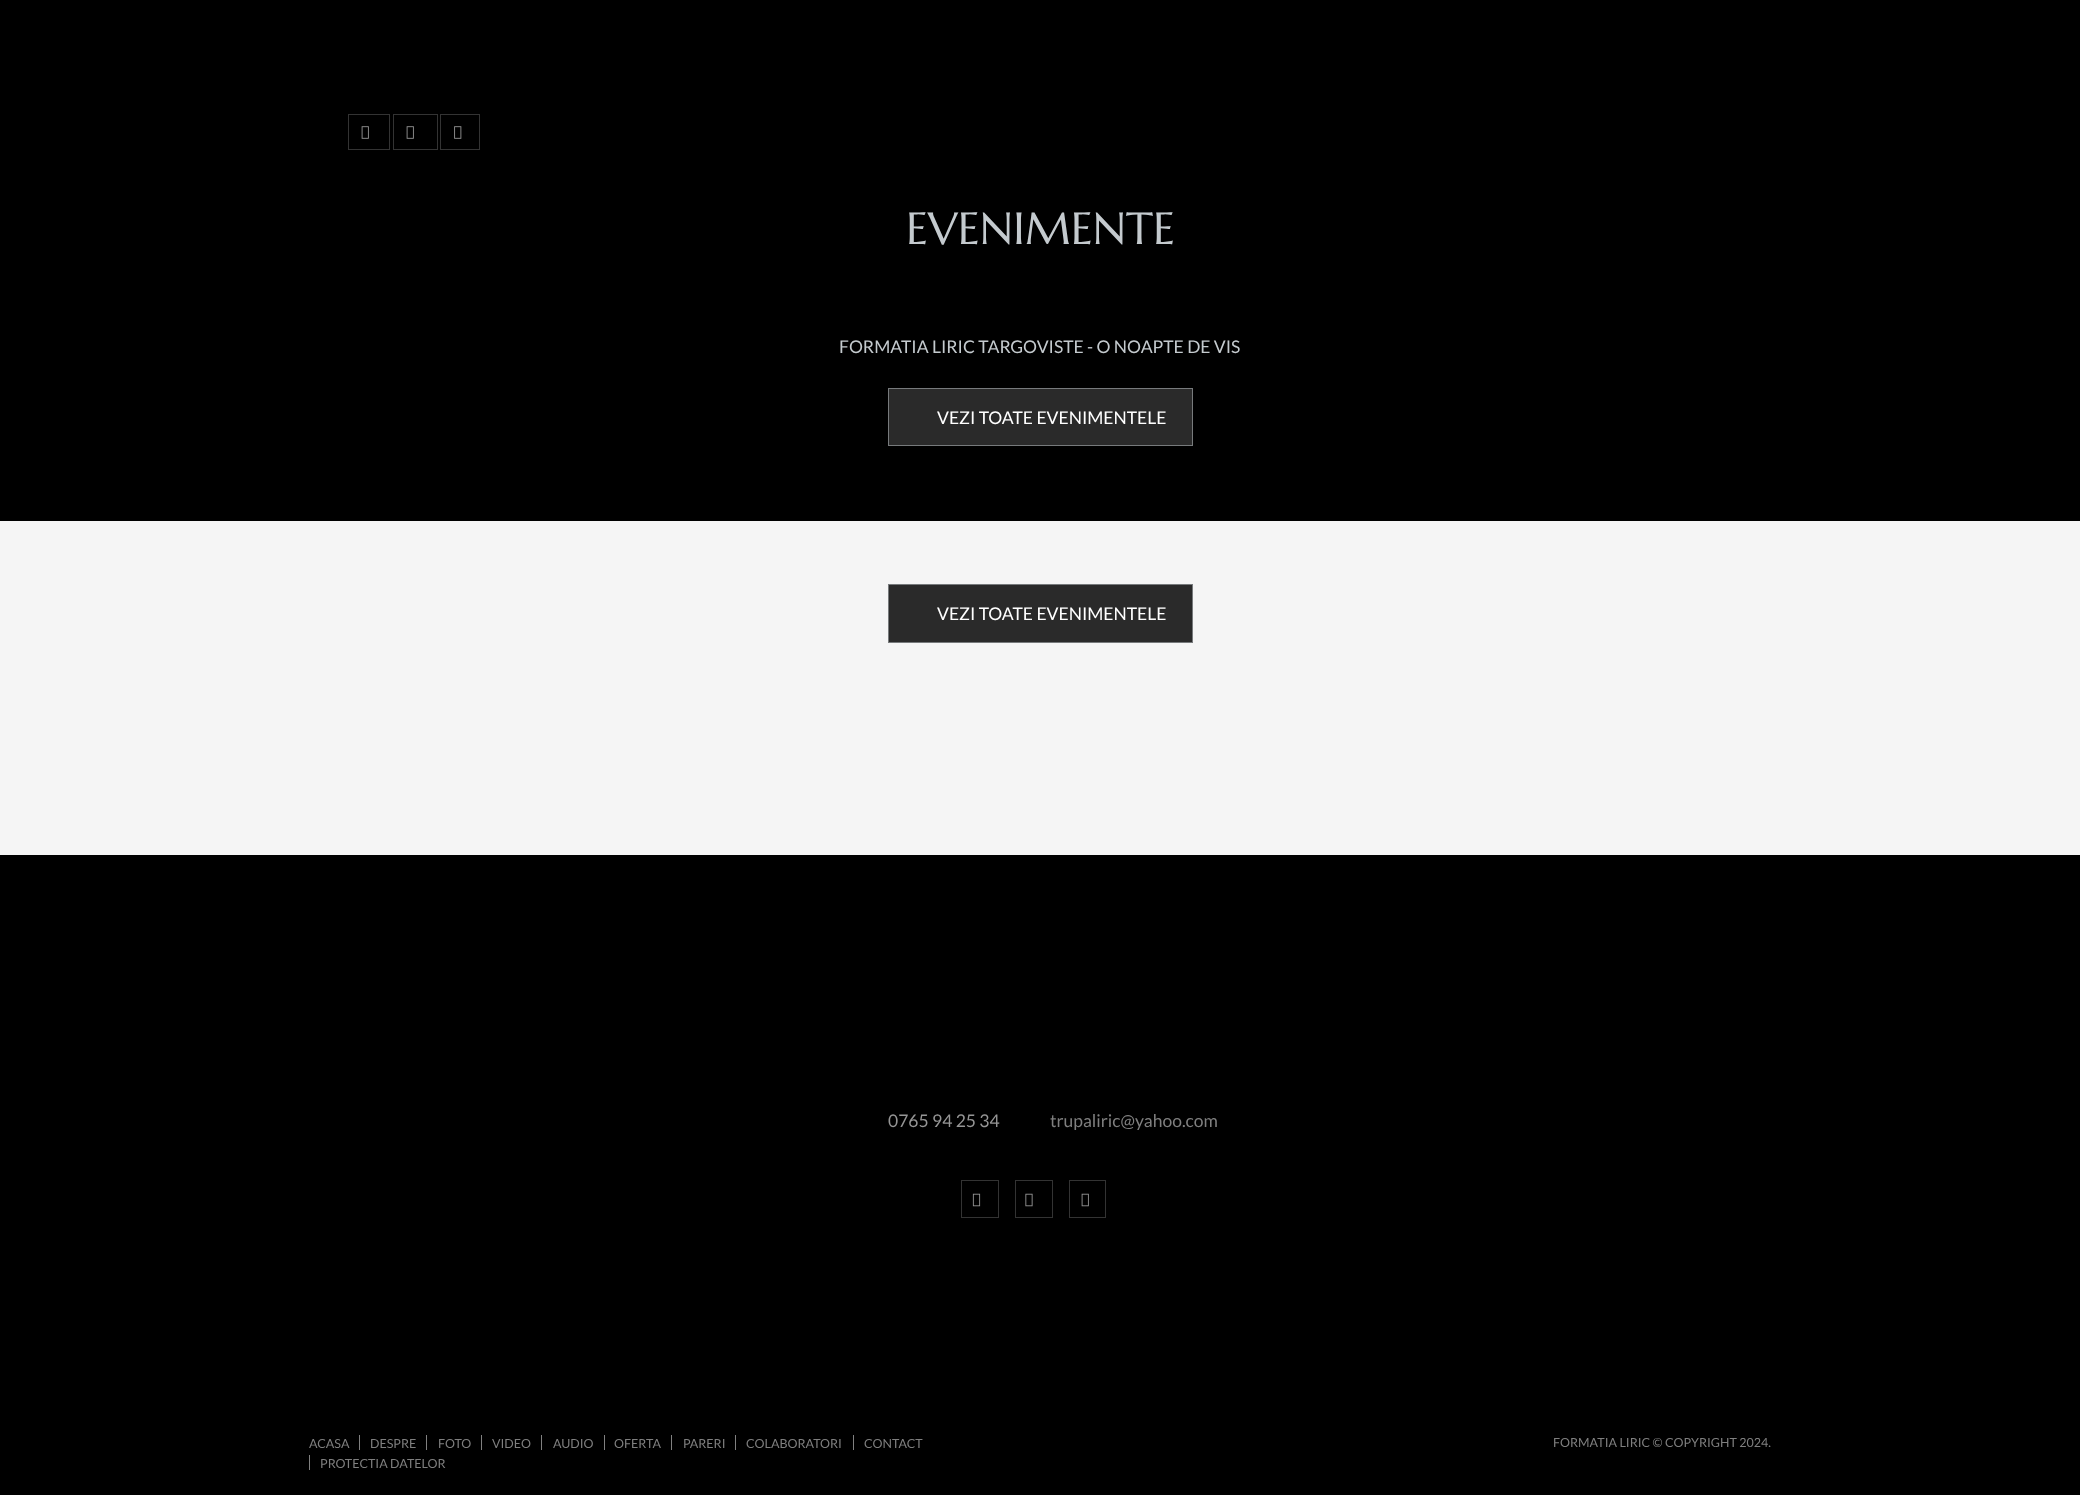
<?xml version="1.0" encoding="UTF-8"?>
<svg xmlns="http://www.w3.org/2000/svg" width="2080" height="1495">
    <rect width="100%" height="100%" fill="#000000"/>
    <rect x="348.5" y="114.5" width="41" height="35" fill="none" stroke="#333333"/>
    <image x="361" y="126" width="8" height="13" href="img_01.png"/>
    <rect x="393.5" y="114.5" width="44" height="35" fill="none" stroke="#333333"/>
    <image x="406" y="126" width="8" height="13" href="img_01.png"/>
    <rect x="440.5" y="114.5" width="39" height="35" fill="none" stroke="#333333"/>
    <image x="454" y="126" width="8" height="13" href="img_02.png"/>
    <text x="906" y="244" font-family="Marcellus SC" font-size="45" fill="#C4CACE">EVENIMENTE</text>
    <text x="839" y="353" font-family="Lato" font-size="17.5" fill="#C4CACE">FORMATIA LIRIC TARGOVISTE - O NOAPTE DE VIS</text>
    <rect x="888.5" y="388.5" width="304" height="57" fill="#2A2A2A" stroke="#777A7C"/>
    <text x="937" y="424" font-family="Lato" font-size="17.5" fill="#FFFFFF">VEZI TOATE EVENIMENTELE</text>
    <rect x="0" y="521" width="2080" height="334" fill="#F5F5F5"/>
    <rect x="888.5" y="584.5" width="304" height="58" fill="#2A2A2A" stroke="#777A7C"/>
    <text x="937" y="620" font-family="Lato" font-size="17.5" fill="#FFFFFF">VEZI TOATE EVENIMENTELE</text>
    <text x="888" y="1127" font-family="Lato" font-size="17.5" fill="#959595">0765 94 25 34</text>
    <text x="1050" y="1127" font-family="Lato" font-size="17.5" fill="#7F7F7F">trupaliric@yahoo.com</text>
    <rect x="961.5" y="1180.5" width="37" height="37" fill="none" stroke="#333333"/>
    <image x="972" y="1193" width="9" height="14" href="img_03.png"/>
    <rect x="1015.5" y="1180.5" width="37" height="37" fill="none" stroke="#333333"/>
    <image x="1025" y="1193" width="8" height="14" href="img_04.png"/>
    <rect x="1069.5" y="1180.5" width="36" height="37" fill="none" stroke="#333333"/>
    <image x="1081" y="1193" width="8" height="14" href="img_05.png"/>
    <text x="309" y="1448" font-family="Lato" font-size="12.5" fill="#7F7F7F">ACASA</text>
    <text x="370" y="1448" font-family="Lato" font-size="12.5" fill="#7F7F7F">DESPRE</text>
    <rect x="359" y="1435" width="1" height="15" fill="#808080"/>
    <text x="438" y="1448" font-family="Lato" font-size="12.5" fill="#7F7F7F">FOTO</text>
    <rect x="426" y="1435" width="1" height="15" fill="#808080"/>
    <text x="492" y="1448" font-family="Lato" font-size="12.5" fill="#7F7F7F">VIDEO</text>
    <rect x="481" y="1435" width="1" height="15" fill="#808080"/>
    <text x="553" y="1448" font-family="Lato" font-size="12.5" fill="#7F7F7F">AUDIO</text>
    <rect x="541" y="1435" width="1" height="15" fill="#808080"/>
    <text x="614" y="1448" font-family="Lato" font-size="12.5" fill="#7F7F7F">OFERTA</text>
    <rect x="604" y="1435" width="1" height="15" fill="#808080"/>
    <text x="683" y="1448" font-family="Lato" font-size="12.5" fill="#7F7F7F">PARERI</text>
    <rect x="671" y="1435" width="1" height="15" fill="#808080"/>
    <text x="746" y="1448" font-family="Lato" font-size="12.5" fill="#7F7F7F">COLABORATORI</text>
    <rect x="735" y="1435" width="1" height="15" fill="#808080"/>
    <text x="864" y="1448" font-family="Lato" font-size="12.5" fill="#7F7F7F">CONTACT</text>
    <rect x="853" y="1435" width="1" height="15" fill="#808080"/>
    <text x="320" y="1468" font-family="Lato" font-size="12.5" fill="#7F7F7F">PROTECTIA DATELOR</text>
    <rect x="309" y="1455" width="1" height="15" fill="#808080"/>
    <text x="1553" y="1447" font-family="Lato" font-size="12.5" fill="#7F7F7F">FORMATIA LIRIC © COPYRIGHT 2024.</text>
</svg>
